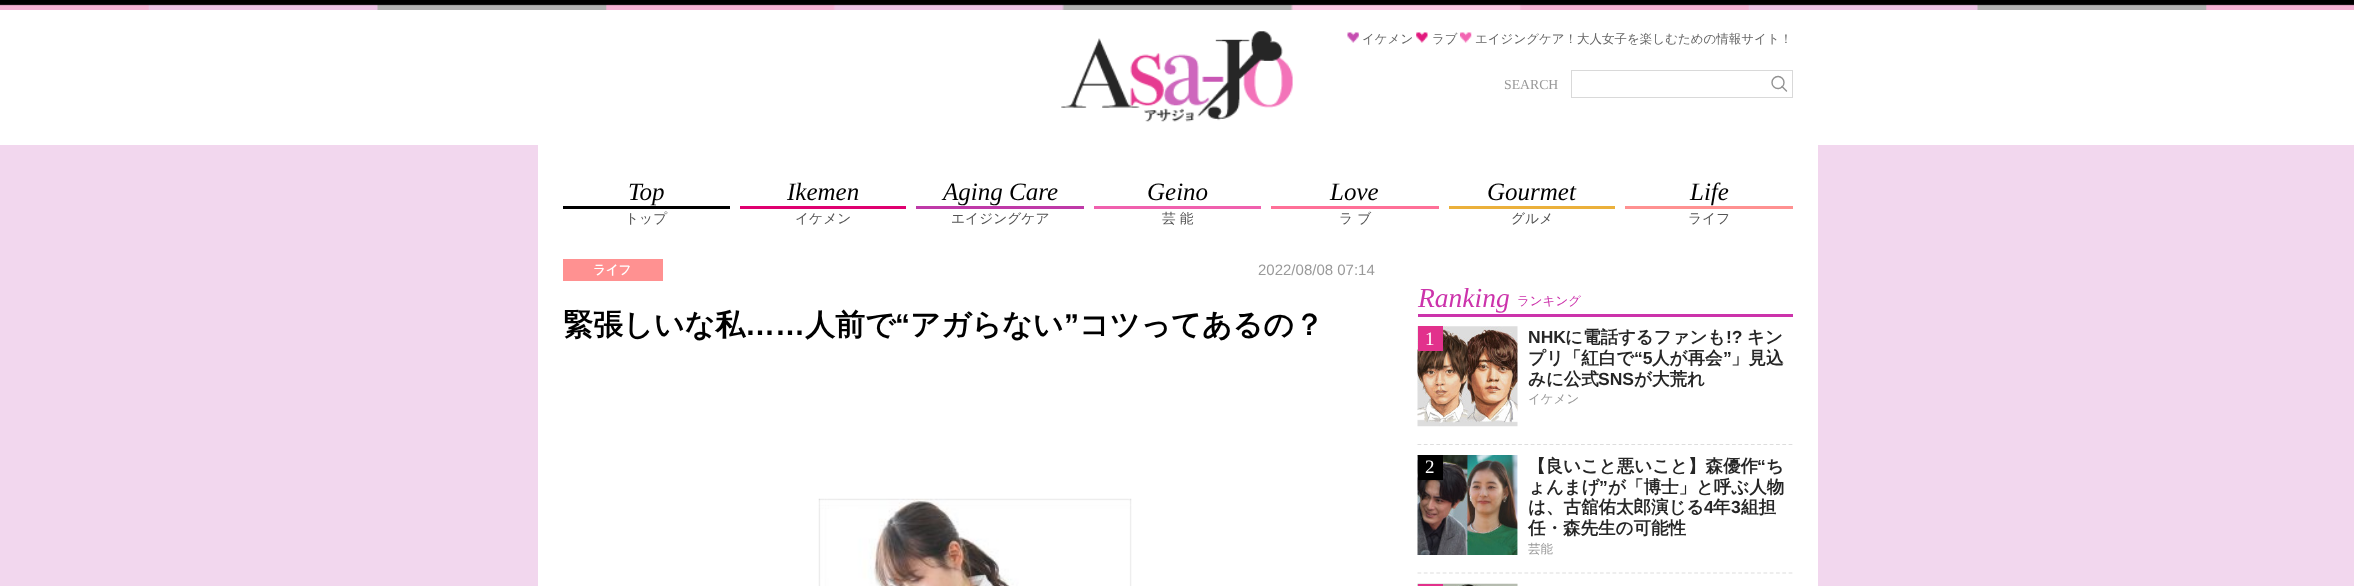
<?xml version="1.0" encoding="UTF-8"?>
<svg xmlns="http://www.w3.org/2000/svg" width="2354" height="586">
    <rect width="100%" height="100%" fill="#FFFFFF"/>
    <image x="0" y="0" width="2354" height="10" href="img_01.png"/>
    <image x="1061" y="31" width="232" height="91" href="img_02.png"/>
    <image x="1347" y="32" width="12" height="11" href="img_03.png"/>
    <text x="1362" y="43" font-family="WenQuanYi Zen Hei" font-size="12.5" font-weight="500" fill="#666666">イケメン</text>
    <image x="1416" y="32" width="12" height="11" href="img_04.png"/>
    <text x="1432" y="43" font-family="WenQuanYi Zen Hei" font-size="12.5" font-weight="500" fill="#666666">ラブ</text>
    <image x="1460" y="32" width="12" height="11" href="img_05.png"/>
    <text x="1475" y="43" font-family="WenQuanYi Zen Hei" font-size="12.5" font-weight="500" fill="#666666">エイジングケア！大人女子を楽しむための情報サイト！</text>
    <text x="1504" y="89" font-family="Liberation Serif" font-size="13.75" fill="#999999">SEARCH</text>
    <rect x="1571.5" y="70.5" width="221" height="27" fill="none" stroke="#D9D9D9"/>
    <circle cx="1778" cy="82.5" r="6" fill="none" stroke="#929292" stroke-width="1.4"/>
    <path d="M 1782 86.5 L 1786.5 91" fill="none" stroke="#929292" stroke-width="1.4" stroke-linecap="round"/>
    <rect x="0" y="145" width="2354" height="441" fill="#F2D7EE"/>
    <rect x="538" y="145" width="1280" height="441" fill="#FFFFFF"/>
    <rect x="563" y="206" width="167" height="3" fill="#000000"/>
    <text x="628" y="200" font-family="Liberation Serif" font-size="25" font-style="italic" fill="#000000">Top</text>
    <text x="625" y="223" font-family="WenQuanYi Zen Hei" font-size="13.75" font-weight="500" fill="#535353">トップ</text>
    <rect x="740" y="206" width="166" height="3" fill="#DF0070"/>
    <text x="787" y="200" font-family="Liberation Serif" font-size="25" font-style="italic" fill="#000000">Ikemen</text>
    <text x="795" y="223" font-family="WenQuanYi Zen Hei" font-size="13.75" font-weight="500" fill="#535353">イケメン</text>
    <rect x="916" y="206" width="168" height="3" fill="#BF39A8"/>
    <text x="943" y="200" font-family="Liberation Serif" font-size="25" font-style="italic" fill="#000000">Aging Care</text>
    <text x="951" y="223" font-family="WenQuanYi Zen Hei" font-size="13.75" font-weight="500" fill="#535353">エイジングケア</text>
    <rect x="1094" y="206" width="167" height="3" fill="#F060AE"/>
    <text x="1147" y="200" font-family="Liberation Serif" font-size="25" font-style="italic" fill="#000000">Geino</text>
    <text x="1162" y="223" font-family="WenQuanYi Zen Hei" font-size="13.75" font-weight="500" fill="#535353">芸 能</text>
    <rect x="1271" y="206" width="168" height="3" fill="#FF7098"/>
    <text x="1330" y="200" font-family="Liberation Serif" font-size="25" font-style="italic" fill="#000000">Love</text>
    <text x="1339" y="223" font-family="WenQuanYi Zen Hei" font-size="13.75" font-weight="500" fill="#535353">ラ ブ</text>
    <rect x="1449" y="206" width="166" height="3" fill="#EBB03B"/>
    <text x="1487" y="200" font-family="Liberation Serif" font-size="25" font-style="italic" fill="#000000">Gourmet</text>
    <text x="1511" y="223" font-family="WenQuanYi Zen Hei" font-size="13.75" font-weight="500" fill="#535353">グルメ</text>
    <rect x="1625" y="206" width="168" height="3" fill="#FF9191"/>
    <text x="1690" y="200" font-family="Liberation Serif" font-size="25" font-style="italic" fill="#000000">Life</text>
    <text x="1688" y="223" font-family="WenQuanYi Zen Hei" font-size="13.75" font-weight="500" fill="#535353">ライフ</text>
    <rect x="563" y="259" width="100" height="22" fill="#FF9191"/>
    <text x="593" y="274" font-family="WenQuanYi Zen Hei" font-size="12.5" font-weight="700" fill="#FFFFFF">ライフ</text>
    <text x="1258" y="275" font-family="Liberation Sans" font-size="15" fill="#999999">2022/08/08 07:14</text>
    <text x="563" y="335" font-family="WenQuanYi Zen Hei" font-size="30" font-weight="700" fill="#000000">緊張しいな私</text>
    <text x="805" y="335" font-family="WenQuanYi Zen Hei" font-size="30" font-weight="700" fill="#000000">人前で</text>
    <text x="895" y="335" font-family="Liberation Sans" font-size="30" font-weight="700" fill="#000000">“</text>
    <text x="910" y="335" font-family="WenQuanYi Zen Hei" font-size="30" font-weight="700" fill="#000000">アガらない</text>
    <text x="1064" y="335" font-family="Liberation Sans" font-size="30" font-weight="700" fill="#000000">”</text>
    <text x="1079" y="335" font-family="WenQuanYi Zen Hei" font-size="30" font-weight="700" fill="#000000">コツってあるの？</text>
    <text x="745" y="335" font-family="Liberation Sans" font-size="30" font-weight="700" fill="#000000">……</text>
    <image x="818" y="498" width="314" height="88" href="img_06.png"/>
    <rect x="1418" y="314" width="375" height="3" fill="#CC33AB"/>
    <text x="1418" y="307" font-family="Liberation Serif" font-size="27.5" font-style="italic" fill="#CC33AB">Ranking</text>
    <text x="1517" y="305" font-family="WenQuanYi Zen Hei" font-size="12.5" font-weight="500" fill="#CC33AB">ランキング</text>
    <path d="M 1417.5 444.5 H 1792.5" fill="none" stroke="#DDDDDD" stroke-width="1.2" stroke-dasharray="3.75 2.54"/>
    <image x="1417" y="326" width="101" height="101" href="img_07.png"/>
    <rect x="1418" y="326" width="25" height="25" fill="#E2318C"/>
    <text x="1425" y="345" font-family="Liberation Serif" font-size="19" fill="#FFFFFF">1</text>
    <text x="1528" y="343" font-family="Liberation Sans" font-size="17.5" font-weight="700" fill="#262626">NHK</text>
    <text x="1565" y="343" font-family="WenQuanYi Zen Hei" font-size="17.5" font-weight="700" fill="#262626">に電話するファンも</text>
    <text x="1726" y="343" font-family="Liberation Sans" font-size="17.5" font-weight="700" fill="#262626">!?</text>
    <text x="1747" y="343" font-family="WenQuanYi Zen Hei" font-size="17.5" font-weight="700" fill="#262626">キン</text>
    <text x="1528" y="364" font-family="WenQuanYi Zen Hei" font-size="17.5" font-weight="700" fill="#262626">プリ「紅白で</text>
    <text x="1634" y="364" font-family="Liberation Sans" font-size="17.5" font-weight="700" fill="#262626">“5</text>
    <text x="1652" y="364" font-family="WenQuanYi Zen Hei" font-size="17.5" font-weight="700" fill="#262626">人が再会</text>
    <text x="1723" y="364" font-family="Liberation Sans" font-size="17.5" font-weight="700" fill="#262626">”</text>
    <text x="1731" y="364" font-family="WenQuanYi Zen Hei" font-size="17.5" font-weight="700" fill="#262626">」見込</text>
    <text x="1528" y="385" font-family="WenQuanYi Zen Hei" font-size="17.5" font-weight="700" fill="#262626">みに公式</text>
    <text x="1598" y="385" font-family="Liberation Sans" font-size="17.5" font-weight="700" fill="#262626">SNS</text>
    <text x="1634" y="385" font-family="WenQuanYi Zen Hei" font-size="17.5" font-weight="700" fill="#262626">が大荒れ</text>
    <text x="1528" y="403" font-family="WenQuanYi Zen Hei" font-size="12.5" font-weight="500" fill="#999999">イケメン</text>
    <path d="M 1417.5 573 H 1792.5" fill="none" stroke="#DDDDDD" stroke-width="1.2" stroke-dasharray="3.75 2.54"/>
    <image x="1417" y="455" width="101" height="100" href="img_08.png"/>
    <rect x="1418" y="455" width="25" height="25" fill="#000000"/>
    <text x="1425" y="473" font-family="Liberation Serif" font-size="19" fill="#FFFFFF">2</text>
    <text x="1528" y="472" font-family="WenQuanYi Zen Hei" font-size="17.5" font-weight="700" fill="#262626">【良いこと悪いこと】森優作</text>
    <text x="1757" y="472" font-family="Liberation Sans" font-size="17.5" font-weight="700" fill="#262626">“</text>
    <text x="1766" y="472" font-family="WenQuanYi Zen Hei" font-size="17.5" font-weight="700" fill="#262626">ち</text>
    <text x="1528" y="493" font-family="WenQuanYi Zen Hei" font-size="17.5" font-weight="700" fill="#262626">ょんまげ</text>
    <text x="1599" y="493" font-family="Liberation Sans" font-size="17.5" font-weight="700" fill="#262626">”</text>
    <text x="1608" y="493" font-family="WenQuanYi Zen Hei" font-size="17.5" font-weight="700" fill="#262626">が「博士」と呼ぶ人物</text>
    <text x="1528" y="513" font-family="WenQuanYi Zen Hei" font-size="17.5" font-weight="700" fill="#262626">は、古舘佑太郎演じる</text>
    <text x="1704" y="513" font-family="Liberation Sans" font-size="17.5" font-weight="700" fill="#262626">4</text>
    <text x="1713" y="513" font-family="WenQuanYi Zen Hei" font-size="17.5" font-weight="700" fill="#262626">年</text>
    <text x="1731" y="513" font-family="Liberation Sans" font-size="17.5" font-weight="700" fill="#262626">3</text>
    <text x="1741" y="513" font-family="WenQuanYi Zen Hei" font-size="17.5" font-weight="700" fill="#262626">組担</text>
    <text x="1528" y="534" font-family="WenQuanYi Zen Hei" font-size="17.5" font-weight="700" fill="#262626">任・森先生の可能性</text>
    <text x="1528" y="553" font-family="WenQuanYi Zen Hei" font-size="12.5" font-weight="500" fill="#999999">芸能</text>
    <image x="1417" y="583" width="101" height="3" href="img_09.png"/>
    <rect x="1418" y="584" width="25" height="2" fill="#E2318C"/>
</svg>
